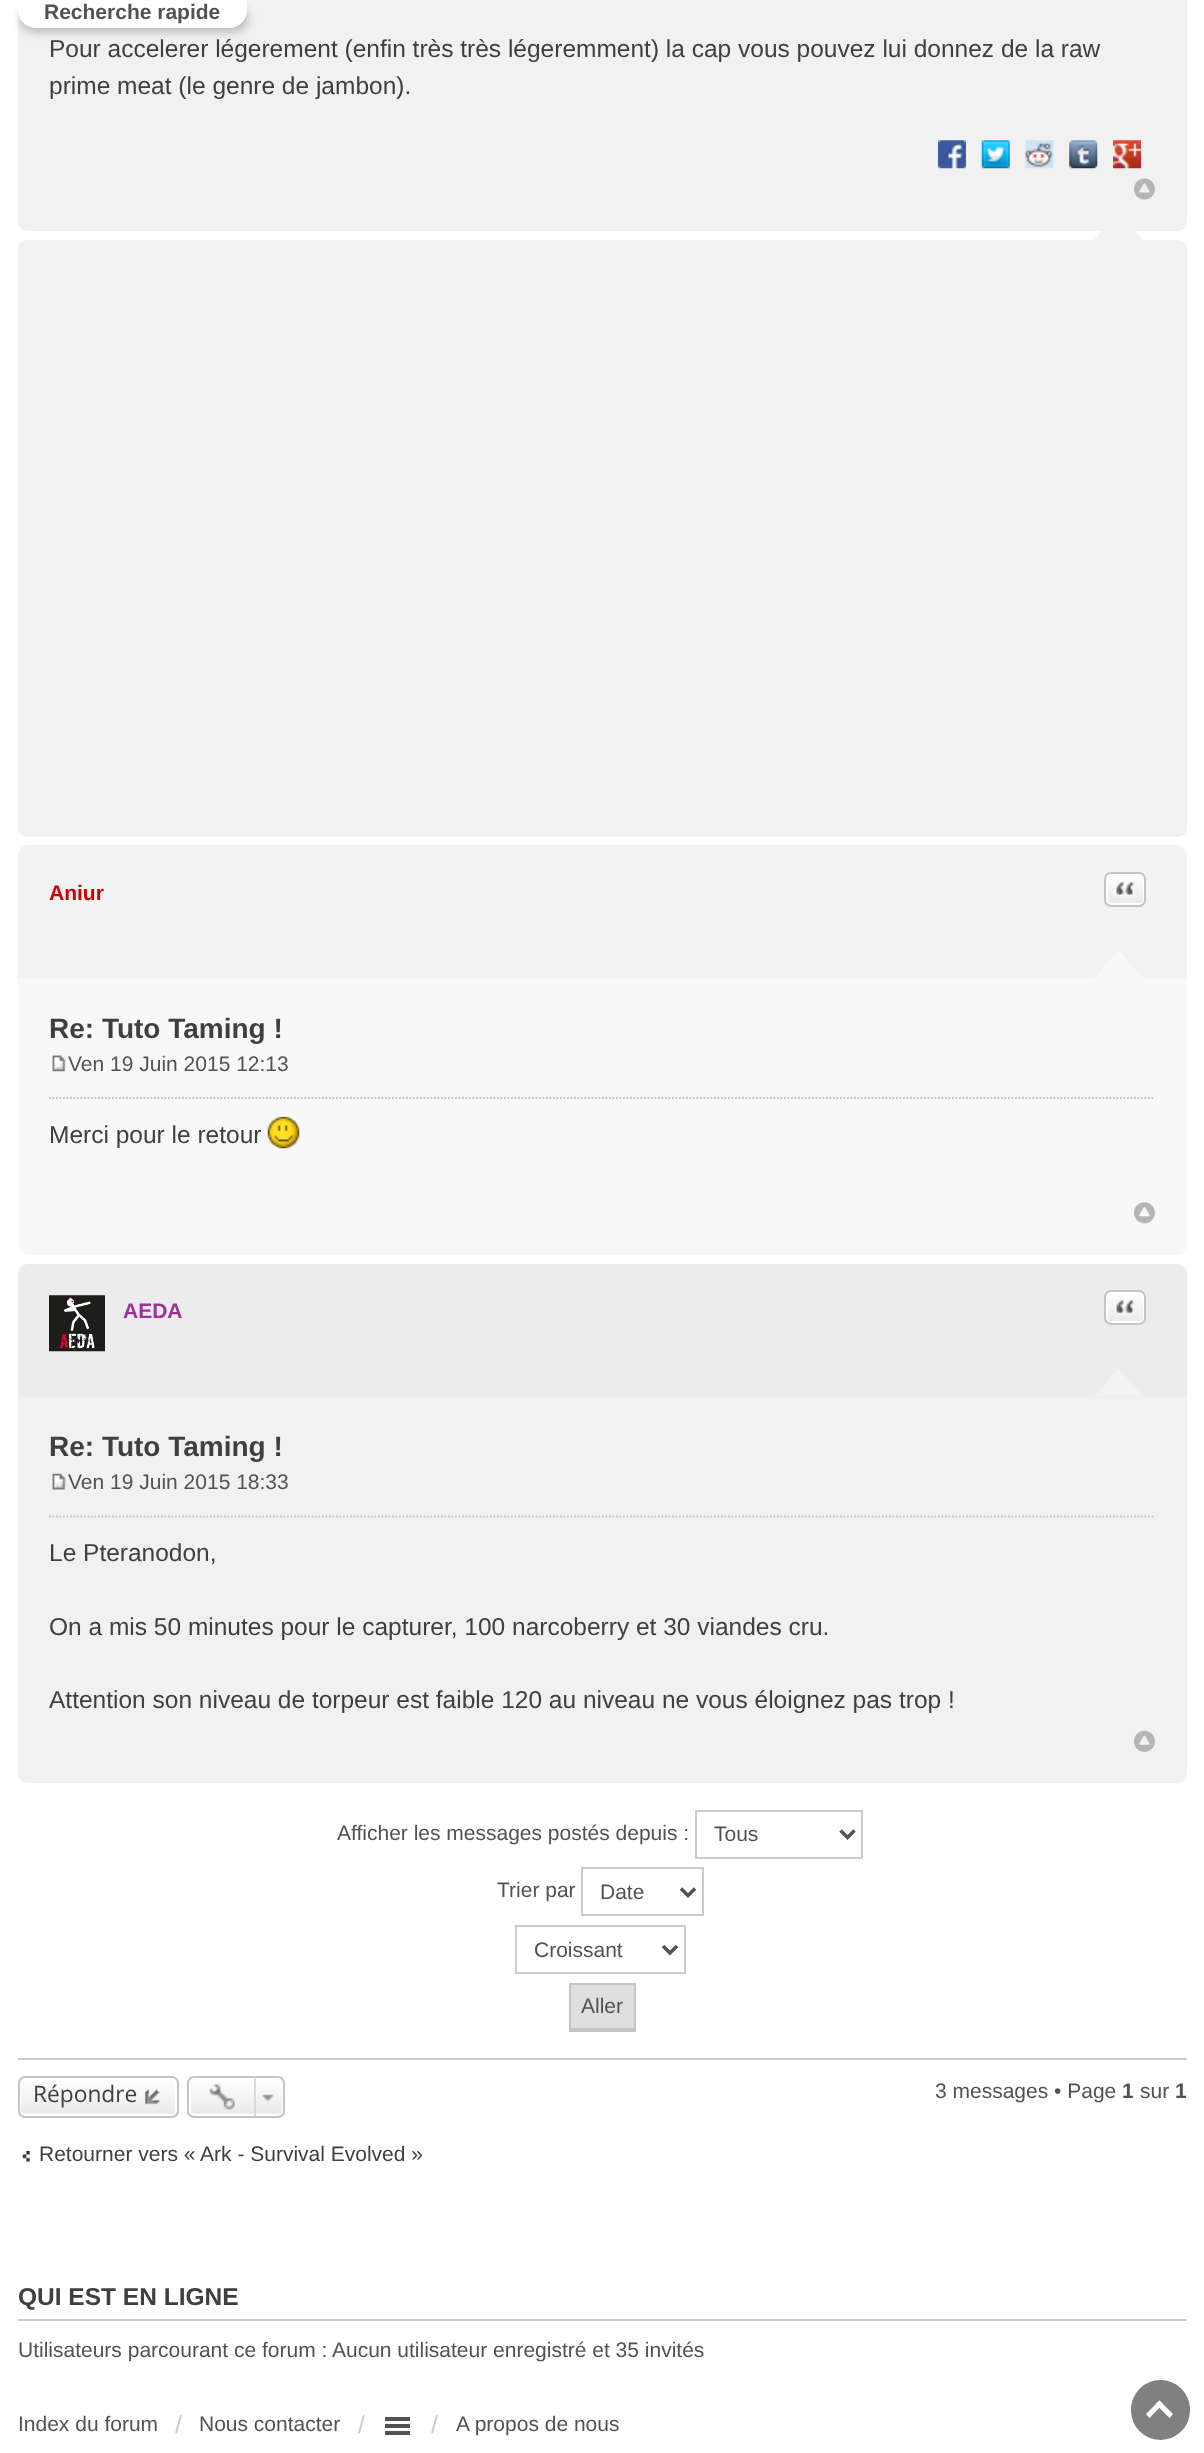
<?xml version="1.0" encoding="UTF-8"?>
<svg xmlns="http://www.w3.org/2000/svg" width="1204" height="2453">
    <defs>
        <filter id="blur1" x="-50%" y="-200%" width="200%" height="500%"><feGaussianBlur stdDeviation="4.5"/></filter>
        <clipPath id="clip1"><rect x="1104" y="872" width="42" height="35" rx="7"/></clipPath>
        <linearGradient id="g1" gradientUnits="userSpaceOnUse" x1="1125" y1="873" x2="1125" y2="905"><stop offset="0" stop-color="#FFFFFF"/><stop offset="1" stop-color="#E9E9E9"/></linearGradient>
        <clipPath id="clip2"><rect x="1104" y="1290" width="42" height="35" rx="7"/></clipPath>
        <linearGradient id="g2" gradientUnits="userSpaceOnUse" x1="1125" y1="1292" x2="1125" y2="1323"><stop offset="0" stop-color="#FFFFFF"/><stop offset="1" stop-color="#E9E9E9"/></linearGradient>
        <clipPath id="clip3"><rect x="18" y="2076" width="161" height="42" rx="7"/></clipPath>
        <linearGradient id="g3" gradientUnits="userSpaceOnUse" x1="98" y1="2077" x2="98" y2="2116"><stop offset="0" stop-color="#FFFFFF"/><stop offset="1" stop-color="#E9E9E9"/></linearGradient>
        <clipPath id="clip4"><rect x="187" y="2076" width="98" height="42" rx="7"/></clipPath>
        <linearGradient id="g4" gradientUnits="userSpaceOnUse" x1="236" y1="2077" x2="236" y2="2116"><stop offset="0" stop-color="#FFFFFF"/><stop offset="1" stop-color="#E9E9E9"/></linearGradient>
    </defs>
    <rect width="100%" height="100%" fill="#FFFFFF"/>
    <rect x="18" y="-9" width="1169" height="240" rx="9" fill="#F1F1F1"/>
    <rect x="19" y="5" width="230" height="28" rx="18" fill="#000000" fill-opacity="0.2" filter="url(#blur1)"/>
    <path d="M 18 0 H 247 V 10 C 247 20 239 28 229 28 H 36 C 26 28 18 20 18 10 Z" fill="#FFFFFF"/>
    <text x="44" y="19" font-family="Liberation Sans" font-size="21" font-weight="700" fill="#525252">Recherche rapide</text>
    <text font-family="Liberation Sans" font-size="24.5" fill="#3F3F3F">
        <tspan x="49" y="57">Pour accelerer légerement (enfin très très légeremment) la cap vous pouvez lui donnez de la raw</tspan>
        <tspan x="49" y="94">prime meat (le genre de jambon).</tspan>
    </text>
    <image x="938" y="140" width="28" height="29" href="img_01.png"/>
    <image x="981" y="140" width="29" height="29" href="img_02.png"/>
    <image x="1025" y="140" width="29" height="29" href="img_03.png"/>
    <image x="1069" y="140" width="29" height="29" href="img_04.png"/>
    <image x="1113" y="140" width="28" height="29" href="img_05.png"/>
    <image x="1134" y="178" width="21" height="22" href="img_06.png"/>
    <rect x="18" y="240" width="1169" height="597" rx="9" fill="#F1F1F1"/>
    <path d="M 1143 240 H 1094 L 1118 212 Z" fill="#F2F2F2"/>
    <rect x="18" y="845" width="1169" height="410" rx="9" fill="#F8F8F8"/>
    <path d="M 30 845 H 1175 C 1181.5 845 1187 850.5 1187 857 V 978 H 18 V 857 C 18 850.5 23.5 845 30 845 Z" fill="#F2F2F2"/>
    <text x="49" y="900" font-family="Liberation Sans" font-size="21" font-weight="700" fill="#CC0000">Aniur</text>
    <path d="M 1143 978 H 1094 L 1118 950 Z" fill="#F8F8F8"/>
    <g clip-path="url(#clip1)">
        <rect x="1104" y="873" width="42" height="32" fill="url(#g1)"/>
    </g>
    <rect x="1107" y="874" width="37" height="30" rx="4" fill="none" stroke="#FFFFFF" stroke-width="2"/>
    <rect x="1105" y="873" width="40" height="33" rx="6" fill="none" stroke="#C7C3BF" stroke-width="2"/>
    <image x="1115" y="882" width="20" height="15" href="img_07.png"/>
    <text x="49" y="1038" font-family="Liberation Sans" font-size="28" font-weight="700" fill="#3F3F3F">Re: Tuto Taming !</text>
    <path d="M 49 1098 H 1155" fill="none" stroke="#C2C2C2" stroke-width="1.8" stroke-dasharray="1.75 1.75"/>
    <image x="52" y="1055" width="14" height="17" href="img_08.png"/>
    <text x="68" y="1071" font-family="Liberation Sans" font-size="21" fill="#525252">Ven 19 Juin 2015 12:13</text>
    <text x="49" y="1143" font-family="Liberation Sans" font-size="24.5" fill="#3F3F3F">Merci pour le retour</text>
    <image x="267" y="1116" width="33" height="33" href="img_09.png"/>
    <image x="1134" y="1202" width="21" height="22" href="img_10.png"/>
    <rect x="18" y="1264" width="1169" height="519" rx="9" fill="#F1F1F1"/>
    <path d="M 30 1264 H 1175 C 1181.5 1264 1187 1269.5 1187 1276 V 1397 H 18 V 1276 C 18 1269.5 23.5 1264 30 1264 Z" fill="#ECECEC"/>
    <image x="49" y="1295" width="56" height="57" href="img_11.png"/>
    <text x="123" y="1318" font-family="Liberation Sans" font-size="21" font-weight="700" fill="#993399">AEDA</text>
    <path d="M 1143 1396 H 1094 L 1118 1368 Z" fill="#F2F2F2"/>
    <g clip-path="url(#clip2)">
        <rect x="1104" y="1292" width="42" height="31" fill="url(#g2)"/>
    </g>
    <rect x="1107" y="1293" width="37" height="29" rx="4" fill="none" stroke="#FFFFFF" stroke-width="2"/>
    <rect x="1105" y="1291" width="40" height="33" rx="6" fill="none" stroke="#C7C3BF" stroke-width="2"/>
    <image x="1115" y="1300" width="20" height="15" href="img_12.png"/>
    <text x="49" y="1456" font-family="Liberation Sans" font-size="28" font-weight="700" fill="#3F3F3F">Re: Tuto Taming !</text>
    <path d="M 49 1516.5 H 1155" fill="none" stroke="#C2C2C2" stroke-width="1.8" stroke-dasharray="1.75 1.75"/>
    <image x="52" y="1473" width="14" height="17" href="img_13.png"/>
    <text x="68" y="1489" font-family="Liberation Sans" font-size="21" fill="#525252">Ven 19 Juin 2015 18:33</text>
    <text x="49" y="1561" font-family="Liberation Sans" font-size="24.5" fill="#3F3F3F">Le Pteranodon,</text>
    <text x="49" y="1635" font-family="Liberation Sans" font-size="24.5" fill="#3F3F3F">On a mis 50 minutes pour le capturer, 100 narcoberry et 30 viandes cru.</text>
    <text x="49" y="1708" font-family="Liberation Sans" font-size="24.5" fill="#3F3F3F">Attention son niveau de torpeur est faible 120 au niveau ne vous éloignez pas trop !</text>
    <image x="1134" y="1730" width="21" height="22" href="img_14.png"/>
    <text x="337" y="1840" font-family="Liberation Sans" font-size="21" fill="#525252">Afficher les messages postés depuis :</text>
    <rect x="696" y="1811" width="166" height="47" fill="none" stroke="#CCCCCC" stroke-width="2"/>
    <path d="M 840.5 1830.5 L 847.5 1837.5 L 854.5 1830.5" fill="none" stroke="#525252" stroke-width="3.5"/>
    <text x="714" y="1841" font-family="Liberation Sans" font-size="21" fill="#525252">Tous</text>
    <text x="497" y="1897" font-family="Liberation Sans" font-size="21" fill="#525252">Trier par</text>
    <rect x="582" y="1868" width="121" height="47" fill="none" stroke="#CCCCCC" stroke-width="2"/>
    <path d="M 681 1888.5 L 688 1895.5 L 695 1888.5" fill="none" stroke="#525252" stroke-width="3.5"/>
    <text x="600" y="1899" font-family="Liberation Sans" font-size="21" fill="#525252">Date</text>
    <rect x="516" y="1926" width="169" height="47" fill="none" stroke="#CCCCCC" stroke-width="2"/>
    <path d="M 663 1946 L 670 1953 L 677 1946" fill="none" stroke="#525252" stroke-width="3.5"/>
    <text x="534" y="1957" font-family="Liberation Sans" font-size="21" fill="#525252">Croissant</text>
    <rect x="571" y="1985" width="63" height="43" fill="#DFDFDF"/>
    <rect x="569" y="1983" width="66" height="2" fill="#C5C5C5"/>
    <rect x="634" y="1983" width="2" height="49" fill="#C5C5C5"/>
    <rect x="569" y="2028" width="66" height="4" fill="#C5C5C5"/>
    <rect x="569" y="1983" width="2" height="49" fill="#C5C5C5"/>
    <text x="581" y="2013" font-family="Liberation Sans" font-size="21" fill="#525252">Aller</text>
    <rect x="18" y="2058" width="1169" height="2" fill="#CCCCCC"/>
    <g clip-path="url(#clip3)">
        <rect x="18" y="2077" width="161" height="39" fill="url(#g3)"/>
    </g>
    <rect x="20" y="2078" width="156" height="37" rx="4" fill="none" stroke="#FFFFFF" stroke-width="2"/>
    <rect x="19" y="2077" width="159" height="40" rx="6" fill="none" stroke="#C7C3BF" stroke-width="2"/>
    <text x="33" y="2102" font-family="Open Sans" font-size="22.75" fill="#3F3F3F">Répondre</text>
    <image x="144" y="2089" width="16" height="16" href="img_15.png"/>
    <g clip-path="url(#clip4)">
        <rect x="187" y="2077" width="98" height="39" fill="url(#g4)"/>
    </g>
    <rect x="190" y="2078" width="93" height="37" rx="4" fill="none" stroke="#FFFFFF" stroke-width="2"/>
    <rect x="188" y="2077" width="96" height="40" rx="6" fill="none" stroke="#C7C3BF" stroke-width="2"/>
    <image x="209" y="2084" width="26" height="26" href="img_16.png"/>
    <image x="262" y="2094" width="12" height="8" href="img_17.png"/>
    <rect x="254" y="2077" width="2" height="39" fill="#DADADA"/>
    <text x="935" y="2098" font-family="Liberation Sans" font-size="21" fill="#525252">3 messages • Page</text>
    <text x="1122" y="2098" font-family="Liberation Sans" font-size="21" font-weight="700" fill="#525252">1</text>
    <text x="1140" y="2098" font-family="Liberation Sans" font-size="21" fill="#525252">sur</text>
    <text x="1175" y="2098" font-family="Liberation Sans" font-size="21" font-weight="700" fill="#525252">1</text>
    <image x="22" y="2151" width="8" height="11" href="img_18.png"/>
    <text x="39" y="2161" font-family="Liberation Sans" font-size="21" fill="#3F3F3F">Retourner vers « Ark - Survival Evolved »</text>
    <rect x="18" y="2319" width="1169" height="2" fill="#CCCCCC"/>
    <text x="18" y="2305" font-family="Liberation Sans" font-size="24.5" font-weight="700" fill="#3F3F3F">QUI EST EN LIGNE</text>
    <text x="18" y="2357" font-family="Liberation Sans" font-size="21" fill="#525252">Utilisateurs parcourant ce forum : Aucun utilisateur enregistré et 35 invités</text>
    <text x="18" y="2431" font-family="Liberation Sans" font-size="21" fill="#525252">Index du forum</text>
    <text x="175" y="2433" font-family="Liberation Sans" font-size="24.5" fill="#CACACA">/</text>
    <text x="199" y="2431" font-family="Liberation Sans" font-size="21" fill="#525252">Nous contacter</text>
    <text x="358" y="2433" font-family="Liberation Sans" font-size="24.5" fill="#CACACA">/</text>
    <rect x="385" y="2417" width="25" height="4" fill="#525252"/>
    <rect x="385" y="2424" width="25" height="4" fill="#525252"/>
    <rect x="385" y="2431" width="25" height="4" fill="#525252"/>
    <text x="431" y="2433" font-family="Liberation Sans" font-size="24.5" fill="#CACACA">/</text>
    <text x="456" y="2431" font-family="Liberation Sans" font-size="21" fill="#525252">A propos de nous</text>
    <rect x="1133" y="2382" width="55" height="56" rx="27.5" fill="#808080" stroke="#808080" stroke-width="4"/>
    <path d="M 1163 2404 L 1149.5 2418 L 1146 2414 L 1159.5 2400.5 Z" fill="#FFFFFF"/>
    <path d="M 1173 2414 L 1169.5 2418 L 1155.5 2404 L 1159.5 2400.5 Z" fill="#FFFFFF"/>
</svg>
